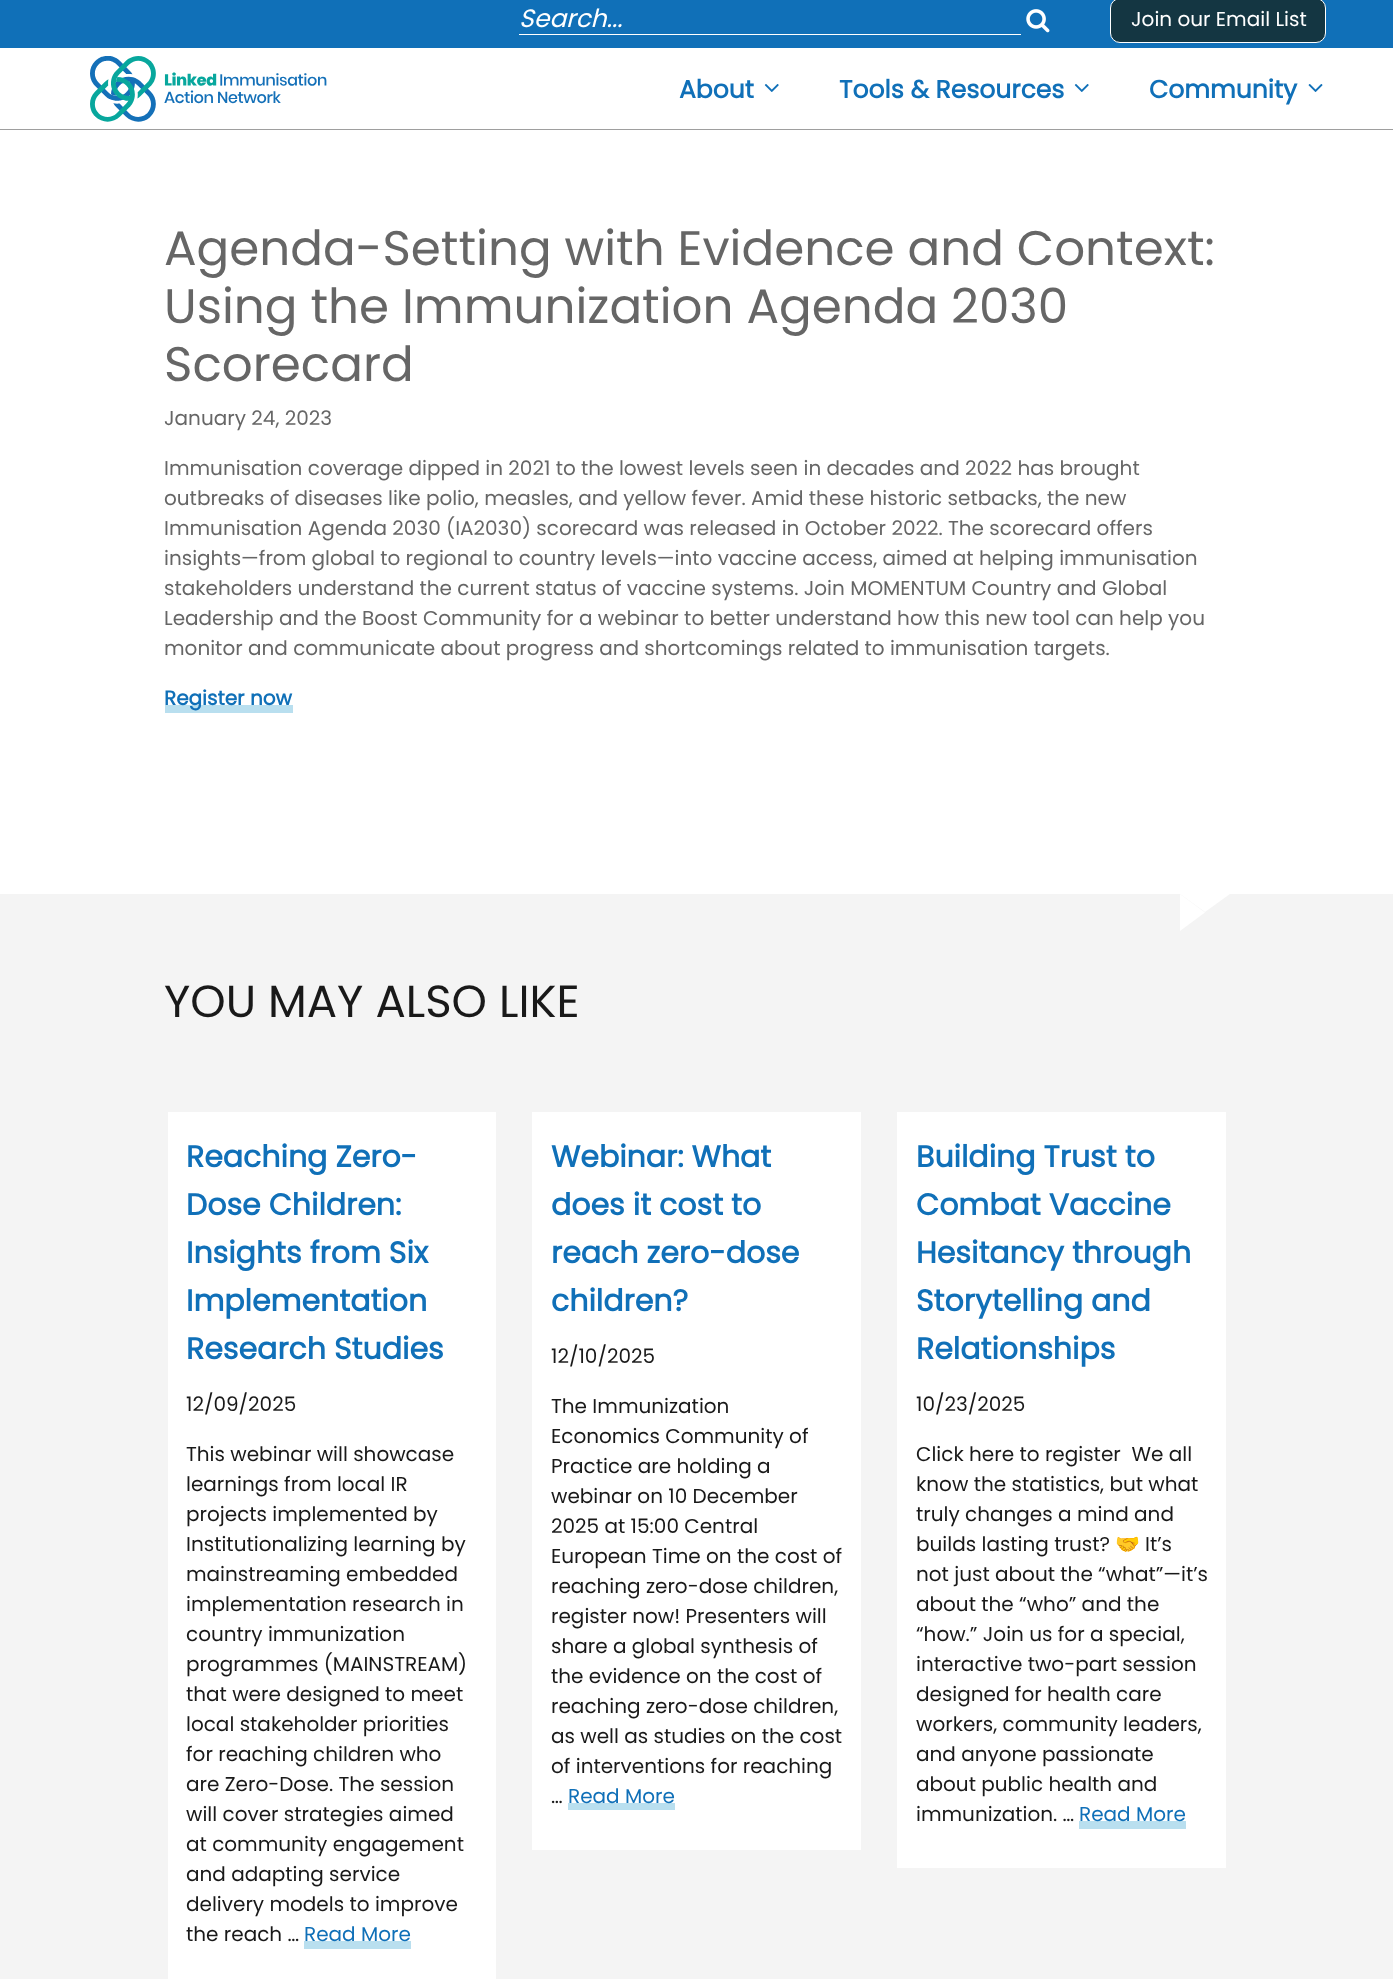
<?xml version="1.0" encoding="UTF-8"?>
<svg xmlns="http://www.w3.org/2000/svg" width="1393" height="1979">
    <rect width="100%" height="100%" fill="#FFFFFF"/>
    <rect x="0" y="0" width="1393" height="48" fill="#1070B8"/>
    <rect x="519" y="34" width="502" height="1" fill="#FFFFFF"/>
    <text x="519" y="27" font-family="Poppins" font-size="25" font-style="italic" fill="#FFFFFF">Search...</text>
    <image x="1026" y="9" width="24" height="24" href="img_01.png"/>
    <rect x="1110.5" y="-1.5" width="215" height="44" rx="9.5" fill="#143642" stroke="#FFFFFF"/>
    <text x="1131" y="26" font-family="Poppins" font-size="20" fill="#FFFFFF">Join our Email List</text>
    <rect x="0" y="129" width="1393" height="1" fill="#9E9E9E"/>
    <image x="90" y="56" width="237" height="66" href="img_02.png"/>
    <text x="679" y="98" font-family="Poppins" font-size="25" font-weight="700" fill="#1070B8">About</text>
    <image x="764" y="84" width="15" height="8" href="img_03.png"/>
    <text x="839" y="98" font-family="Poppins" font-size="25" font-weight="700" fill="#1070B8">Tools &amp; Resources</text>
    <image x="1074" y="84" width="15" height="8" href="img_03.png"/>
    <text x="1149" y="98" font-family="Poppins" font-size="25" font-weight="700" fill="#1070B8">Community</text>
    <image x="1308" y="84" width="15" height="8" href="img_04.png"/>
    <text font-family="Poppins" font-size="48.4" fill="#666666">
        <tspan x="164" y="265">Agenda-Setting with Evidence and Context:</tspan>
        <tspan x="164" y="323">Using the Immunization Agenda 2030</tspan>
        <tspan x="164" y="381">Scorecard</tspan>
    </text>
    <text x="164" y="425" font-family="Poppins" font-size="20" fill="#666666">January 24, 2023</text>
    <text font-family="Poppins" font-size="20" fill="#666666">
        <tspan x="164" y="475">Immunisation coverage dipped in 2021 to the lowest levels seen in decades and 2022 has brought</tspan>
        <tspan x="164" y="505">outbreaks of diseases like polio, measles, and yellow fever. Amid these historic setbacks, the new</tspan>
        <tspan x="164" y="535">Immunisation Agenda 2030 (IA2030) scorecard was released in October 2022. The scorecard offers</tspan>
        <tspan x="164" y="565">insights—from global to regional to country levels—into vaccine access, aimed at helping immunisation</tspan>
        <tspan x="164" y="595">stakeholders understand the current status of vaccine systems. Join MOMENTUM Country and Global</tspan>
        <tspan x="164" y="625">Leadership and the Boost Community for a webinar to better understand how this new tool can help you</tspan>
        <tspan x="164" y="655">monitor and communicate about progress and shortcomings related to immunisation targets.</tspan>
    </text>
    <rect x="165" y="705" width="128" height="8" fill="#B9DFEF"/>
    <text x="164" y="705" font-family="Poppins" font-size="20" font-weight="700" fill="#1070B8">Register now</text>
    <rect x="0" y="894" width="1393" height="1085" fill="#F4F4F4"/>
    <path d="M 1180 894 H 1230 L 1205 912 Z" fill="#FFFFFF"/>
    <path d="M 1180 931 V 894 L 1205 912.5 Z" fill="#FFFFFF"/>
    <text x="164" y="1017" font-family="Poppins" font-size="45" fill="#191919">YOU MAY ALSO LIKE</text>
    <rect x="168" y="1112" width="328" height="867" fill="#FFFFFF"/>
    <text font-family="Poppins" font-size="30" font-weight="700" fill="#1070B8">
        <tspan x="186" y="1167">Reaching Zero-</tspan>
        <tspan x="186" y="1215">Dose Children:</tspan>
        <tspan x="186" y="1263">Insights from Six</tspan>
        <tspan x="186" y="1311">Implementation</tspan>
        <tspan x="186" y="1359">Research Studies</tspan>
    </text>
    <text x="186" y="1411" font-family="Poppins" font-size="20" fill="#191919">12/09/2025</text>
    <text font-family="Poppins" font-size="20" fill="#191919">
        <tspan x="186" y="1461">This webinar will showcase</tspan>
        <tspan x="186" y="1491">learnings from local IR</tspan>
        <tspan x="186" y="1521">projects implemented by</tspan>
        <tspan x="186" y="1551">Institutionalizing learning by</tspan>
        <tspan x="186" y="1581">mainstreaming embedded</tspan>
        <tspan x="186" y="1611">implementation research in</tspan>
        <tspan x="186" y="1641">country immunization</tspan>
        <tspan x="186" y="1671">programmes (MAINSTREAM)</tspan>
        <tspan x="186" y="1701">that were designed to meet</tspan>
        <tspan x="186" y="1731">local stakeholder priorities</tspan>
        <tspan x="186" y="1761">for reaching children who</tspan>
        <tspan x="186" y="1791">are Zero-Dose. The session</tspan>
        <tspan x="186" y="1821">will cover strategies aimed</tspan>
        <tspan x="186" y="1851">at community engagement</tspan>
        <tspan x="186" y="1881">and adapting service</tspan>
        <tspan x="186" y="1911">delivery models to improve</tspan>
        <tspan x="186" y="1941">the reach …</tspan>
    </text>
    <rect x="304" y="1941" width="107" height="8" fill="#B9DFEF"/>
    <text x="304" y="1941" font-family="Poppins" font-size="20" fill="#1070B8">Read More</text>
    <rect x="532" y="1112" width="329" height="738" fill="#FFFFFF"/>
    <text font-family="Poppins" font-size="30" font-weight="700" fill="#1070B8">
        <tspan x="551" y="1167">Webinar: What</tspan>
        <tspan x="551" y="1215">does it cost to</tspan>
        <tspan x="551" y="1263">reach zero-dose</tspan>
        <tspan x="551" y="1311">children?</tspan>
    </text>
    <text x="551" y="1363" font-family="Poppins" font-size="20" fill="#191919">12/10/2025</text>
    <text font-family="Poppins" font-size="20" fill="#191919">
        <tspan x="551" y="1413">The Immunization</tspan>
        <tspan x="551" y="1443">Economics Community of</tspan>
        <tspan x="551" y="1473">Practice are holding a</tspan>
        <tspan x="551" y="1503">webinar on 10 December</tspan>
        <tspan x="551" y="1533">2025 at 15:00 Central</tspan>
        <tspan x="551" y="1563">European Time on the cost of</tspan>
        <tspan x="551" y="1593">reaching zero-dose children,</tspan>
        <tspan x="551" y="1623">register now! Presenters will</tspan>
        <tspan x="551" y="1653">share a global synthesis of</tspan>
        <tspan x="551" y="1683">the evidence on the cost of</tspan>
        <tspan x="551" y="1713">reaching zero-dose children,</tspan>
        <tspan x="551" y="1743">as well as studies on the cost</tspan>
        <tspan x="551" y="1773">of interventions for reaching</tspan>
        <tspan x="551" y="1803">…</tspan>
    </text>
    <rect x="568" y="1803" width="107" height="7" fill="#B9DFEF"/>
    <text x="568" y="1803" font-family="Poppins" font-size="20" fill="#1070B8">Read More</text>
    <rect x="897" y="1112" width="329" height="756" fill="#FFFFFF"/>
    <text font-family="Poppins" font-size="30" font-weight="700" fill="#1070B8">
        <tspan x="916" y="1167">Building Trust to</tspan>
        <tspan x="916" y="1215">Combat Vaccine</tspan>
        <tspan x="916" y="1263">Hesitancy through</tspan>
        <tspan x="916" y="1311">Storytelling and</tspan>
        <tspan x="916" y="1359">Relationships</tspan>
    </text>
    <text x="916" y="1411" font-family="Poppins" font-size="20" fill="#191919">10/23/2025</text>
    <text font-family="Poppins" font-size="20" fill="#191919" xml:space="preserve"><tspan x="916" y="1461">Click here to register  We all</tspan><tspan x="916" y="1491">know the statistics, but what</tspan><tspan x="916" y="1521">truly changes a mind and</tspan><tspan x="916" y="1551">builds lasting trust?</tspan></text>
    <text x="1115" y="1551" font-family="Noto Color Emoji" font-size="20" fill="#191919">🤝</text>
    <text x="1145" y="1551" font-family="Poppins" font-size="20" fill="#191919">It’s</text>
    <text font-family="Poppins" font-size="20" fill="#191919">
        <tspan x="916" y="1581">not just about the “what”—it’s</tspan>
        <tspan x="916" y="1611">about the “who” and the</tspan>
        <tspan x="916" y="1641">“how.” Join us for a special,</tspan>
        <tspan x="916" y="1671">interactive two-part session</tspan>
        <tspan x="916" y="1701">designed for health care</tspan>
        <tspan x="916" y="1731">workers, community leaders,</tspan>
        <tspan x="916" y="1761">and anyone passionate</tspan>
        <tspan x="916" y="1791">about public health and</tspan>
        <tspan x="916" y="1821">immunization. …</tspan>
    </text>
    <rect x="1079" y="1821" width="107" height="8" fill="#B9DFEF"/>
    <text x="1079" y="1821" font-family="Poppins" font-size="20" fill="#1070B8">Read More</text>
</svg>
